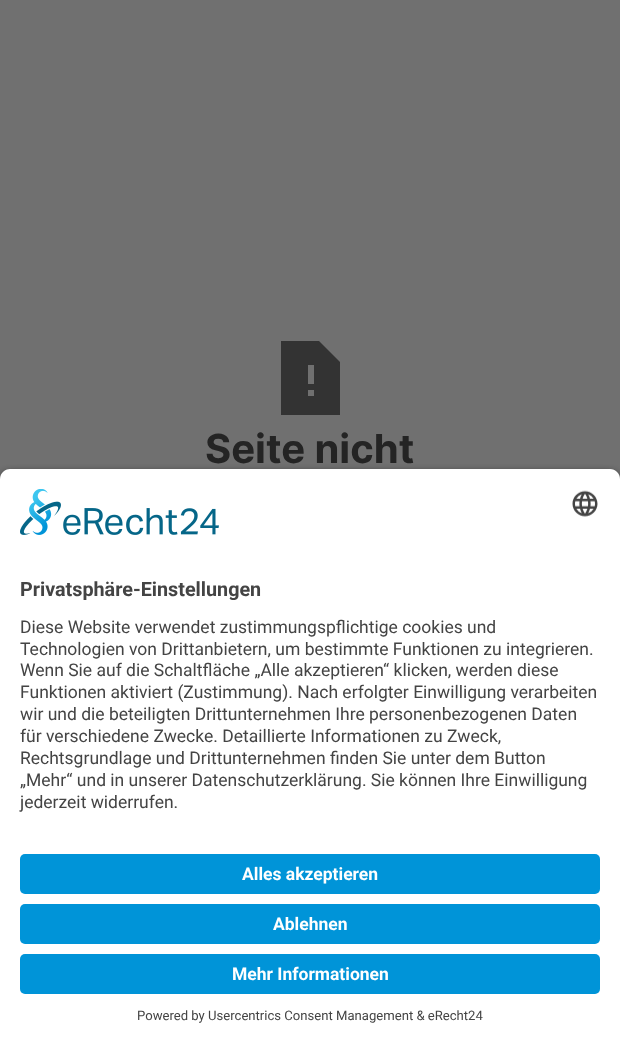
<?xml version="1.0" encoding="UTF-8"?>
<svg xmlns="http://www.w3.org/2000/svg" width="620" height="1043">
    <defs>
        <filter id="blur1" x="-50%" y="-200%" width="200%" height="500%"><feGaussianBlur stdDeviation="4.5"/></filter>
    </defs>
    <rect width="100%" height="100%" fill="#707070"/>
    <path d="M 281 341 H 319 L 340 362 V 415 H 281 Z M 308 365 H 314 V 384 H 308 Z M 308 390 H 314 V 396 H 308 Z" fill="#333333" fill-rule="evenodd"/>
    <text x="205" y="463" font-family="Inter" font-size="40" font-weight="700" fill="#242424">Seite nicht</text>
    <rect x="0" y="473" width="620" height="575" rx="10" fill="#000000" fill-opacity="0.8" filter="url(#blur1)"/>
    <path d="M 10 469 H 610 C 615.5 469 620 473.5 620 479 V 839 H 0 V 479 C 0 473.5 4.5 469 10 469 Z" fill="#FFFFFF"/>
    <image x="20" y="489" width="199" height="46" href="img_01.png"/>
    <image x="572" y="490" width="26" height="27" href="img_02.png"/>
    <text x="20" y="596" font-family="Roboto" font-size="19.75" font-weight="700" fill="#444444">Privatsphäre-Einstellungen</text>
    <text font-family="Roboto" font-size="17.5" fill="#444444">
        <tspan x="20" y="633">Diese Website verwendet zustimmungspflichtige cookies und</tspan>
        <tspan x="20" y="655">Technologien von Drittanbietern, um bestimmte Funktionen zu integrieren.</tspan>
        <tspan x="20" y="676">Wenn Sie auf die Schaltfläche „Alle akzeptieren“ klicken, werden diese</tspan>
        <tspan x="20" y="698">Funktionen aktiviert (Zustimmung). Nach erfolgter Einwilligung verarbeiten</tspan>
        <tspan x="20" y="720">wir und die beteiligten Drittunternehmen Ihre personenbezogenen Daten</tspan>
        <tspan x="20" y="742">für verschiedene Zwecke. Detaillierte Informationen zu Zweck,</tspan>
        <tspan x="20" y="764">Rechtsgrundlage und Drittunternehmen finden Sie unter dem Button</tspan>
        <tspan x="20" y="786">„Mehr“ und in unserer Datenschutzerklärung. Sie können Ihre Einwilligung</tspan>
        <tspan x="20" y="808">jederzeit widerrufen.</tspan>
    </text>
    <rect x="0" y="839" width="620" height="204" fill="#FFFFFF"/>
    <rect x="20" y="854" width="580" height="40" rx="5" fill="#0094D8"/>
    <text x="242" y="880" font-family="Roboto" font-size="17.5" font-weight="700" fill="#FFFFFF">Alles akzeptieren</text>
    <rect x="20" y="904" width="580" height="40" rx="5" fill="#0094D8"/>
    <text x="273" y="930" font-family="Roboto" font-size="17.5" font-weight="700" fill="#FFFFFF">Ablehnen</text>
    <rect x="20" y="954" width="580" height="40" rx="5" fill="#0094D8"/>
    <text x="232" y="980" font-family="Roboto" font-size="17.5" font-weight="700" fill="#FFFFFF">Mehr Informationen</text>
    <text x="137" y="1020" font-family="Roboto" font-size="13.1" fill="#444444">Powered by Usercentrics Consent Management &amp; eRecht24</text>
</svg>
